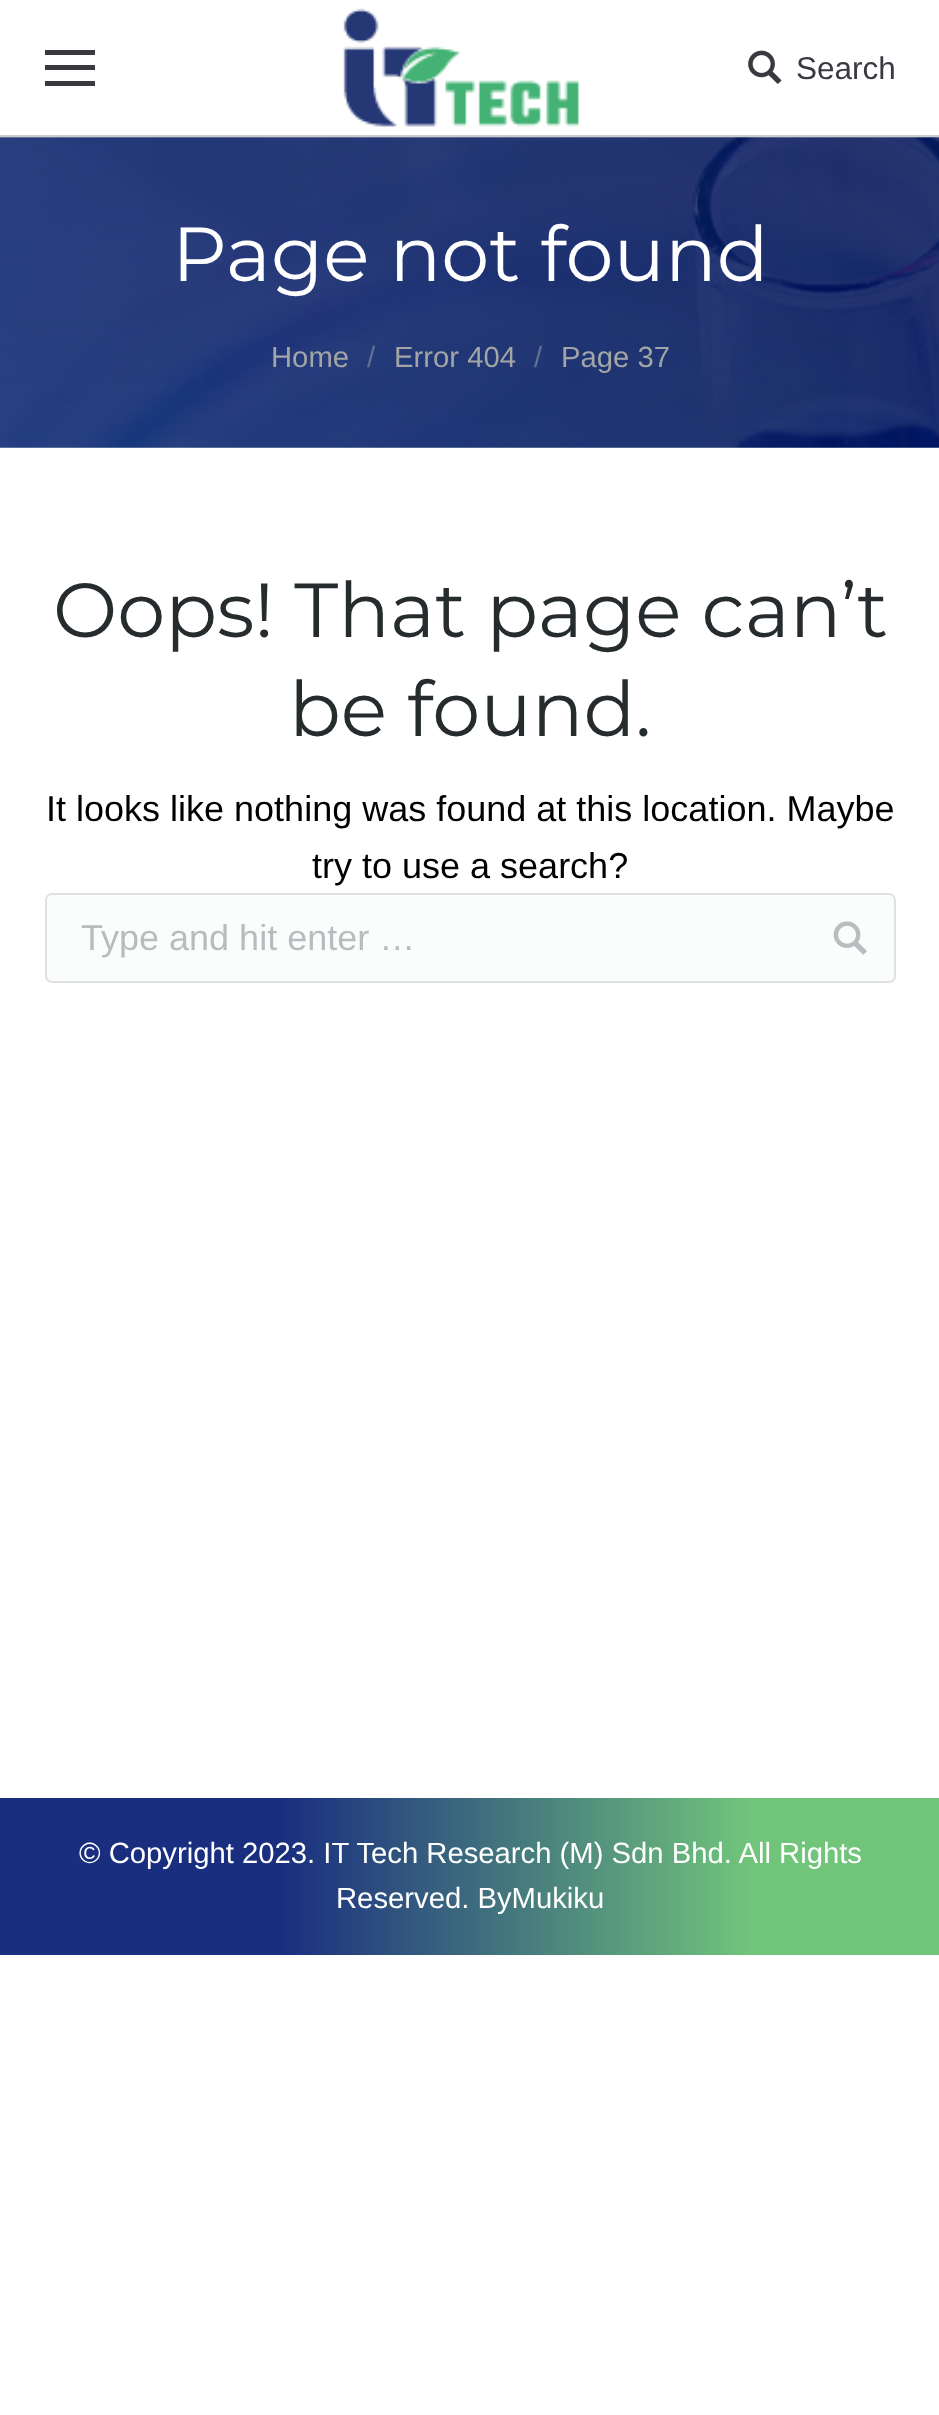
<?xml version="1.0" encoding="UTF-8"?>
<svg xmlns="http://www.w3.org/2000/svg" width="939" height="2415">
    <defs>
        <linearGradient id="g1" gradientUnits="userSpaceOnUse" x1="0" y1="1877" x2="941" y2="1877"><stop offset="0" stop-color="#1A2E80"/><stop offset="0.3" stop-color="#1A2E80"/><stop offset="0.8" stop-color="#71C57B"/><stop offset="1" stop-color="#71C57B"/></linearGradient>
    </defs>
    <rect width="100%" height="100%" fill="#FFFFFF"/>
    <rect x="0" y="135" width="939" height="2" fill="#CCCCCC"/>
    <rect x="45" y="65" width="50" height="5" fill="#393940"/>
    <rect x="45" y="50" width="50" height="5" fill="#393940"/>
    <rect x="45" y="81" width="50" height="5" fill="#393940"/>
    <image x="343" y="8" width="236" height="119" href="img_01.png"/>
    <image x="748" y="50" width="34" height="34" href="img_02.png"/>
    <text x="796" y="79" font-family="Liberation Sans" font-size="31.5" fill="#393940">Search</text>
    <image x="0" y="137" width="939" height="311" href="img_03.png"/>
    <text x="172" y="281" font-family="Montserrat" font-size="76.5" font-weight="100" fill="#FFFFFF">Page not found</text>
    <text x="271" y="367" font-family="Liberation Sans" font-size="29.25" fill="#A2A5A6">Home</text>
    <text x="367" y="367" font-family="Liberation Sans" font-size="29.25" fill="#637090">/</text>
    <text x="394" y="367" font-family="Liberation Sans" font-size="29.25" fill="#A2A5A6">Error 404</text>
    <text x="534" y="367" font-family="Liberation Sans" font-size="29.25" fill="#637090">/</text>
    <text x="561" y="367" font-family="Liberation Sans" font-size="29.25" fill="#A2A5A6">Page 37</text>
    <text x="53" y="637" font-family="Montserrat" font-size="76.5" font-weight="100" fill="#262B2E">Oops! That page can’t</text>
    <text x="289" y="736" font-family="Montserrat" font-size="76.5" font-weight="100" fill="#262B2E">be found.</text>
    <text x="46" y="821" font-family="Liberation Sans" font-size="36" fill="#000000">It looks like nothing was found at this location. Maybe</text>
    <text x="312" y="878" font-family="Liberation Sans" font-size="36" fill="#000000">try to use a search?</text>
    <rect x="46" y="894" width="849" height="88" rx="6" fill="#FBFCFC" stroke="#E0E1E1" stroke-width="2"/>
    <text x="81" y="950" font-family="Liberation Sans" font-size="36" fill="#B8BCBE">Type and hit enter …</text>
    <image x="833" y="921" width="34" height="34" href="img_04.png"/>
    <rect x="0" y="1798" width="939" height="157" fill="url(#g1)"/>
    <text x="79" y="1863" font-family="Liberation Sans" font-size="29.25" fill="#FFFFFF">© Copyright 2023. IT Tech Research (M) Sdn Bhd. All Rights</text>
    <text x="336" y="1908" font-family="Liberation Sans" font-size="29.25" fill="#FFFFFF">Reserved. ByMukiku</text>
</svg>
